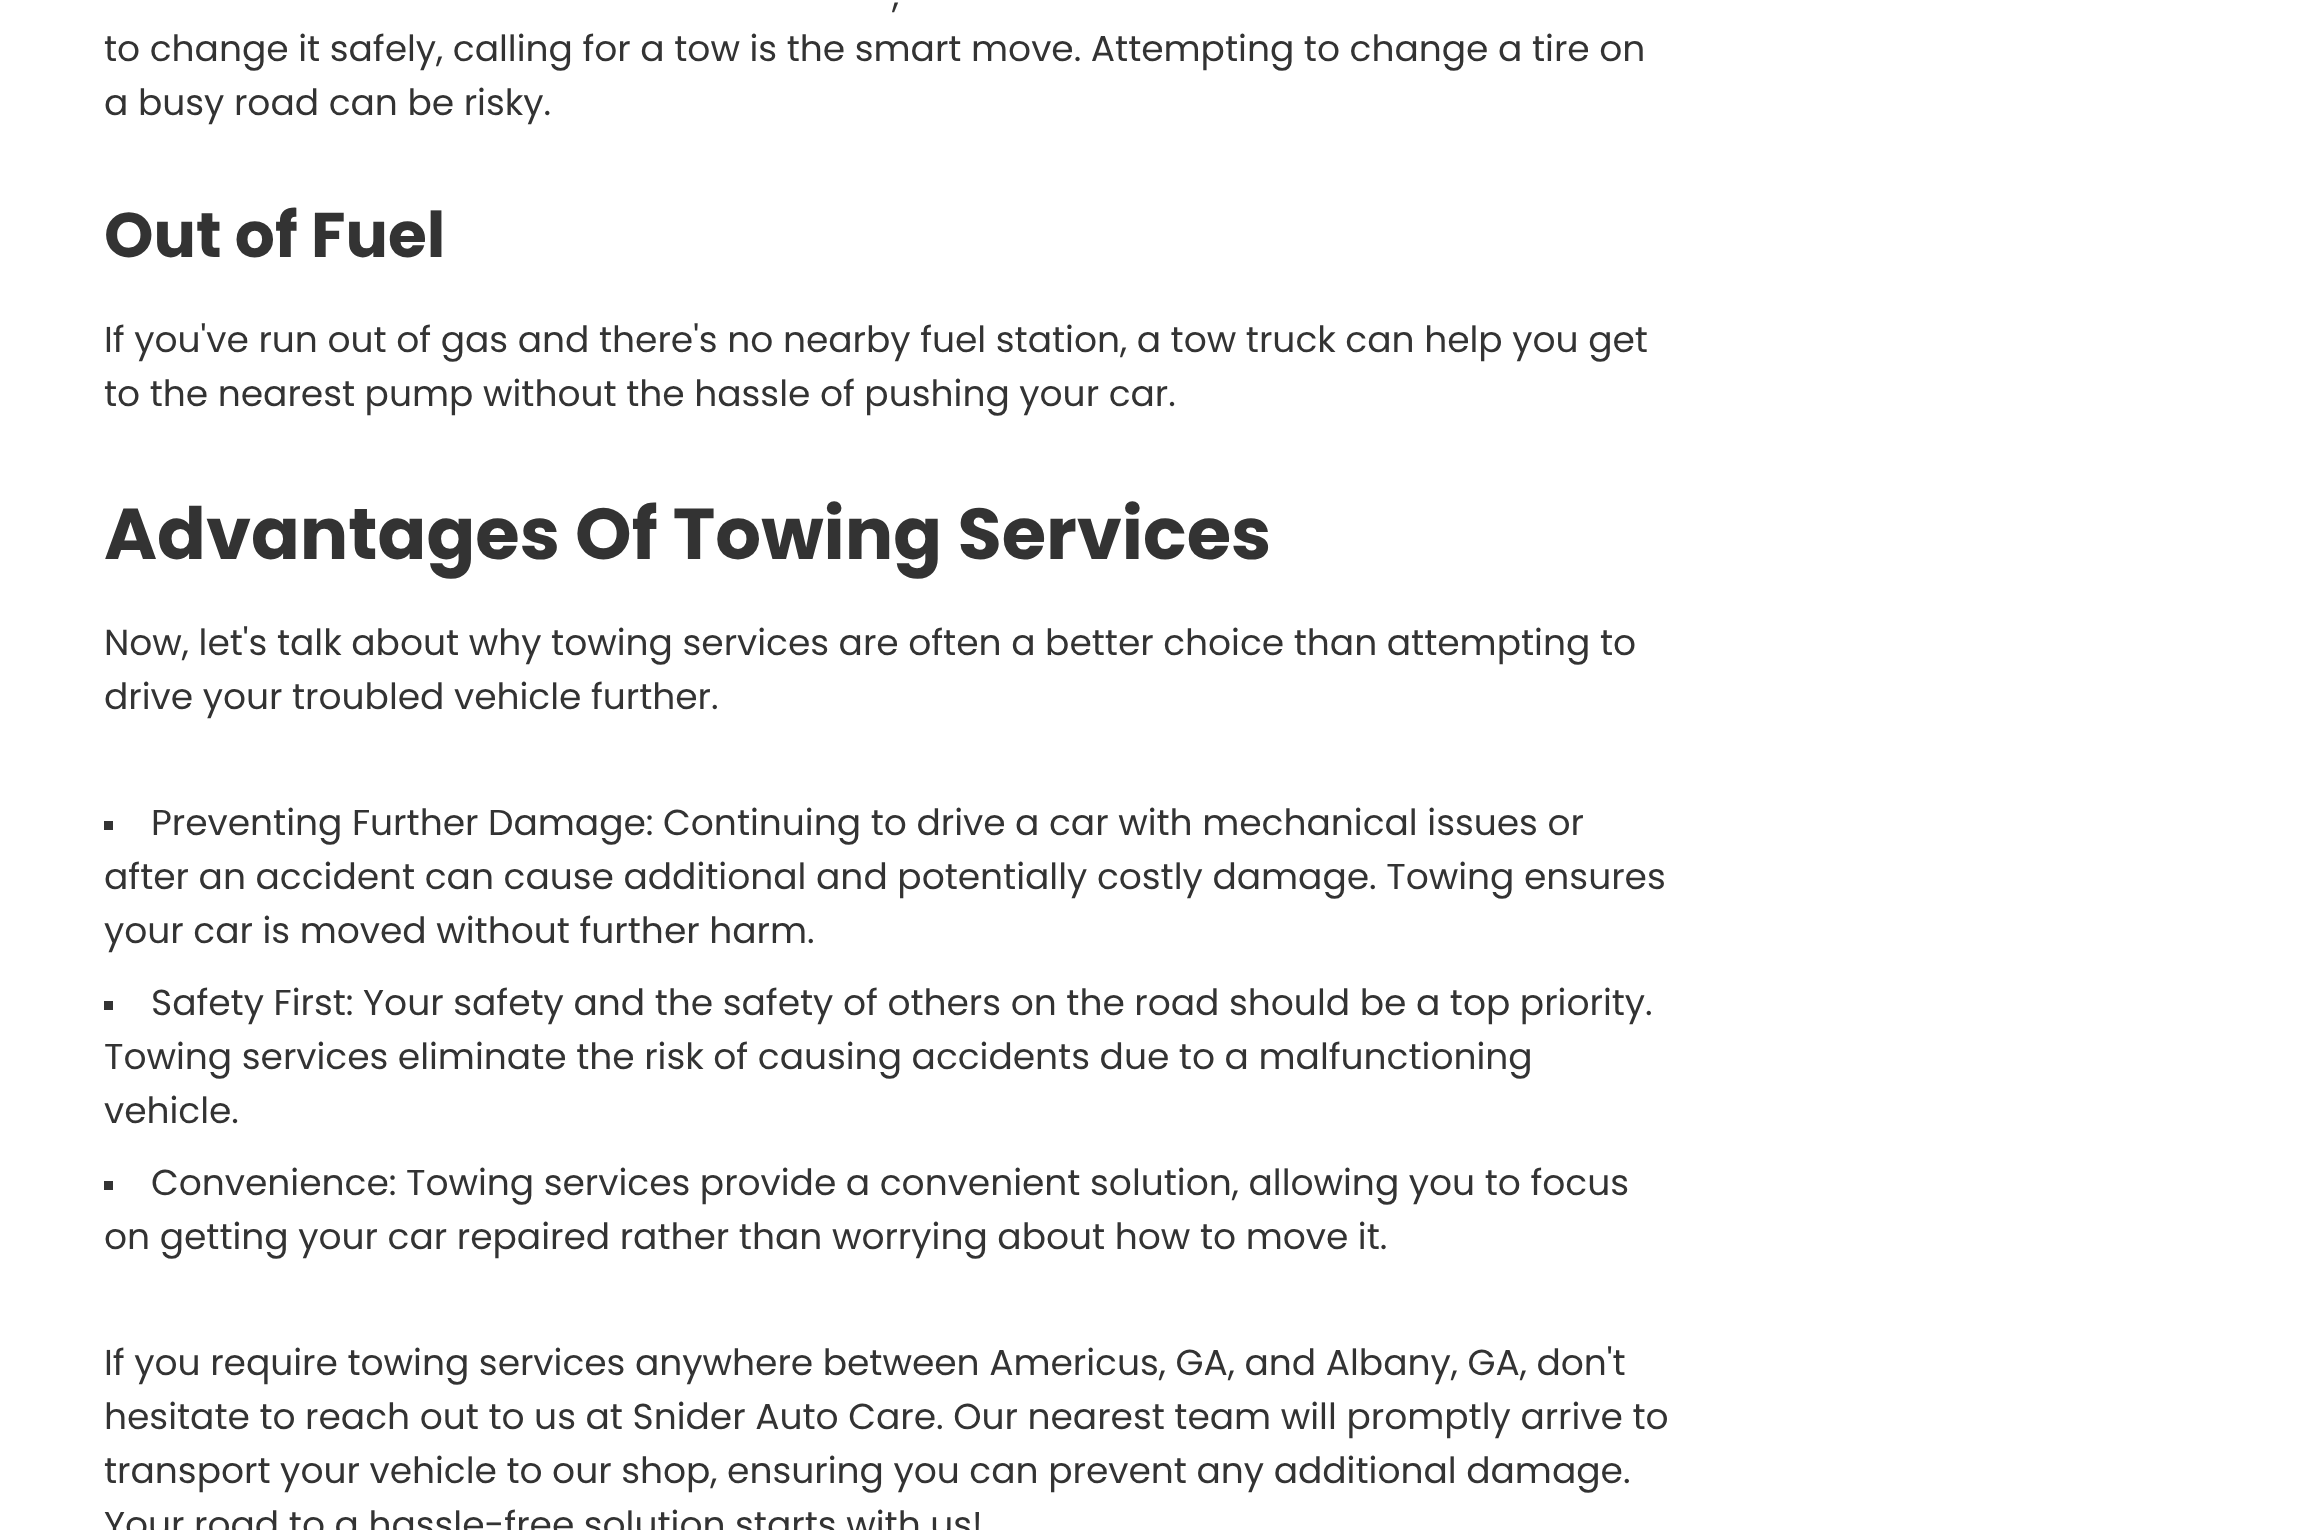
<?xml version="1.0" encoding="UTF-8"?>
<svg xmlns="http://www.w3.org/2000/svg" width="2322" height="1530">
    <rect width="100%" height="100%" fill="#FFFFFF"/>
    <text x="892" y="7" font-family="Poppins" font-size="36" fill="#333333">,</text>
    <text font-family="Poppins" font-size="36" fill="#333333">
        <tspan x="104" y="61">to change it safely, calling for a tow is the smart move. Attempting to change a tire on</tspan>
        <tspan x="104" y="115">a busy road can be risky.</tspan>
    </text>
    <text x="104" y="257" font-family="Poppins" font-size="63" font-weight="700" fill="#333333">Out of Fuel</text>
    <text font-family="Poppins" font-size="36" fill="#333333">
        <tspan x="104" y="352">If you've run out of gas and there's no nearby fuel station, a tow truck can help you get</tspan>
        <tspan x="104" y="406">to the nearest pump without the hassle of pushing your car.</tspan>
    </text>
    <text x="104" y="559" font-family="Poppins" font-size="72" font-weight="700" fill="#333333">Advantages Of Towing Services</text>
    <text font-family="Poppins" font-size="36" fill="#333333">
        <tspan x="104" y="655">Now, let's talk about why towing services are often a better choice than attempting to</tspan>
        <tspan x="104" y="709">drive your troubled vehicle further.</tspan>
    </text>
    <rect x="104" y="821" width="9" height="9" fill="#333333"/>
    <text x="151" y="835" font-family="Poppins" font-size="36" fill="#333333">Preventing Further Damage: Continuing to drive a car with mechanical issues or</text>
    <text font-family="Poppins" font-size="36" fill="#333333">
        <tspan x="104" y="889">after an accident can cause additional and potentially costly damage. Towing ensures</tspan>
        <tspan x="104" y="943">your car is moved without further harm.</tspan>
    </text>
    <rect x="104" y="1001" width="9" height="9" fill="#333333"/>
    <text x="151" y="1015" font-family="Poppins" font-size="36" fill="#333333">Safety First: Your safety and the safety of others on the road should be a top priority.</text>
    <text font-family="Poppins" font-size="36" fill="#333333">
        <tspan x="104" y="1069">Towing services eliminate the risk of causing accidents due to a malfunctioning</tspan>
        <tspan x="104" y="1123">vehicle.</tspan>
    </text>
    <rect x="104" y="1181" width="9" height="9" fill="#333333"/>
    <text x="151" y="1195" font-family="Poppins" font-size="36" fill="#333333">Convenience: Towing services provide a convenient solution, allowing you to focus</text>
    <text x="104" y="1249" font-family="Poppins" font-size="36" fill="#333333">on getting your car repaired rather than worrying about how to move it.</text>
    <text font-family="Poppins" font-size="36" fill="#333333">
        <tspan x="104" y="1375">If you require towing services anywhere between Americus, GA, and Albany, GA, don't</tspan>
        <tspan x="104" y="1429">hesitate to reach out to us at Snider Auto Care. Our nearest team will promptly arrive to</tspan>
        <tspan x="104" y="1483">transport your vehicle to our shop, ensuring you can prevent any additional damage.</tspan>
        <tspan x="104" y="1537">Your road to a hassle-free solution starts with us!</tspan>
    </text>
</svg>
